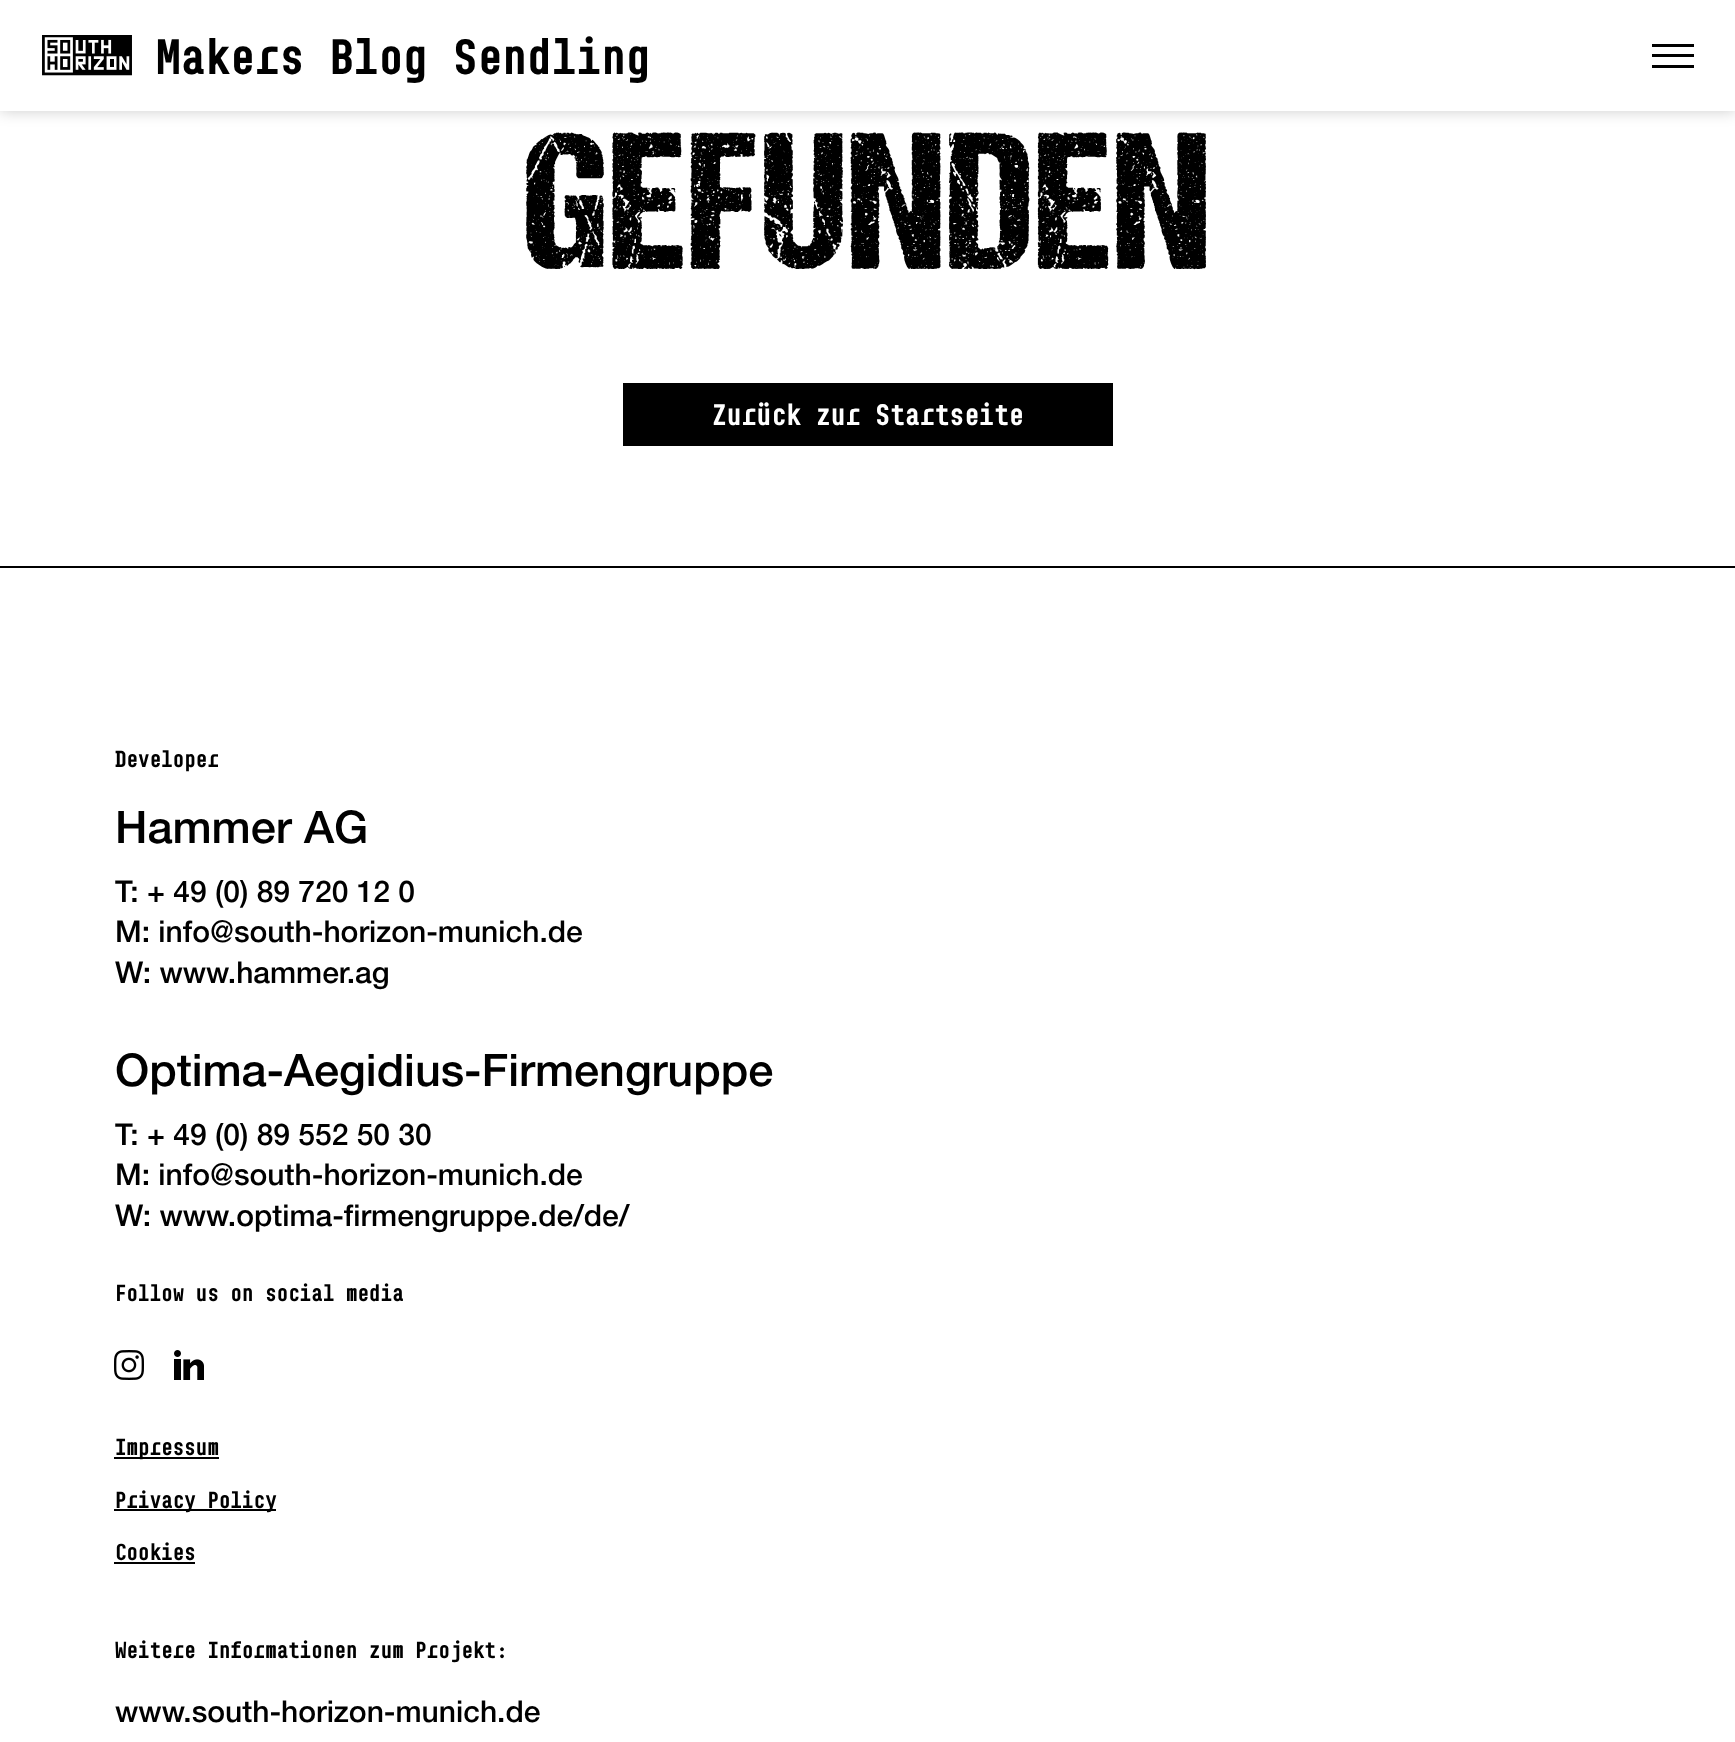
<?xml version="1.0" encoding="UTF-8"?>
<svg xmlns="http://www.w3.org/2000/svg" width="1735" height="1742">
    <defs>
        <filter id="blur1" x="-50%" y="-200%" width="200%" height="500%"><feGaussianBlur stdDeviation="7.5"/></filter>
    </defs>
    <rect width="100%" height="100%" fill="#FFFFFF"/>
    <rect x="0" y="0" width="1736" height="111" fill="#000000" fill-opacity="0.2" filter="url(#blur1)"/>
    <rect x="0" y="0" width="1735" height="111" fill="#FFFFFF"/>
    <image x="42" y="35" width="90" height="41" href="img_01.png"/>
    <text x="156" y="74" font-family="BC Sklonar" font-size="45" font-weight="700" fill="#000000">Makers Blog Sendling</text>
    <rect x="1652" y="44" width="42" height="3" fill="#000000"/>
    <rect x="1652" y="54" width="42" height="3" fill="#000000"/>
    <rect x="1652" y="65" width="42" height="3" fill="#000000"/>
    <rect x="0" y="566" width="1735" height="2" fill="#000000"/>
    <text x="524" y="269" font-family="'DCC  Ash'" font-size="195" letter-spacing="3" fill="#000000">GEFUNDEN</text>
    <rect x="623" y="383" width="490" height="63" fill="#000000"/>
    <text x="712" y="425" font-family="BC Sklonar" font-size="27" font-weight="700" fill="#FFFFFF">Zurück zur Startseite</text>
    <text x="115" y="767" font-family="BC Sklonar" font-size="21" font-weight="700" fill="#000000">Developer</text>
    <text x="115" y="843" font-family="Helvetica Neue" font-size="45" font-weight="500" fill="#000000">Hammer AG</text>
    <text font-family="Helvetica Neue" font-size="30" font-weight="500" fill="#000000">
        <tspan x="115" y="902">T: + 49 (0) 89 720 12 0</tspan>
        <tspan x="115" y="942">M: info@south-horizon-munich.de</tspan>
        <tspan x="115" y="983">W: www.hammer.ag</tspan>
    </text>
    <text x="115" y="1086" font-family="Helvetica Neue" font-size="45" font-weight="500" fill="#000000">Optima-Aegidius-Firmengruppe</text>
    <text font-family="Helvetica Neue" font-size="30" font-weight="500" fill="#000000">
        <tspan x="115" y="1145">T: + 49 (0) 89 552 50 30</tspan>
        <tspan x="115" y="1185">M: info@south-horizon-munich.de</tspan>
        <tspan x="115" y="1226">W: www.optima-firmengruppe.de/de/</tspan>
    </text>
    <text x="115" y="1301" font-family="BC Sklonar" font-size="21" font-weight="700" fill="#000000">Follow us on social media</text>
    <image x="114" y="1350" width="30" height="30" href="img_02.png"/>
    <image x="174" y="1350" width="30" height="30" href="img_03.png"/>
    <rect x="114" y="1457" width="105" height="2" fill="#000000"/>
    <text x="115" y="1455" font-family="BC Sklonar" font-size="21" font-weight="700" fill="#000000">Impressum</text>
    <rect x="114" y="1509" width="162" height="2" fill="#000000"/>
    <text x="115" y="1508" font-family="BC Sklonar" font-size="21" font-weight="700" fill="#000000">Privacy Policy</text>
    <text x="115" y="1560" font-family="BC Sklonar" font-size="21" font-weight="700" fill="#000000">Cookies</text>
    <rect x="114" y="1562" width="81" height="2" fill="#000000"/>
    <text x="115" y="1658" font-family="BC Sklonar" font-size="21" font-weight="700" fill="#000000">Weitere Informationen zum Projekt:</text>
    <text x="115" y="1722" font-family="Helvetica Neue" font-size="30" font-weight="500" fill="#000000">www.south-horizon-munich.de</text>
</svg>
